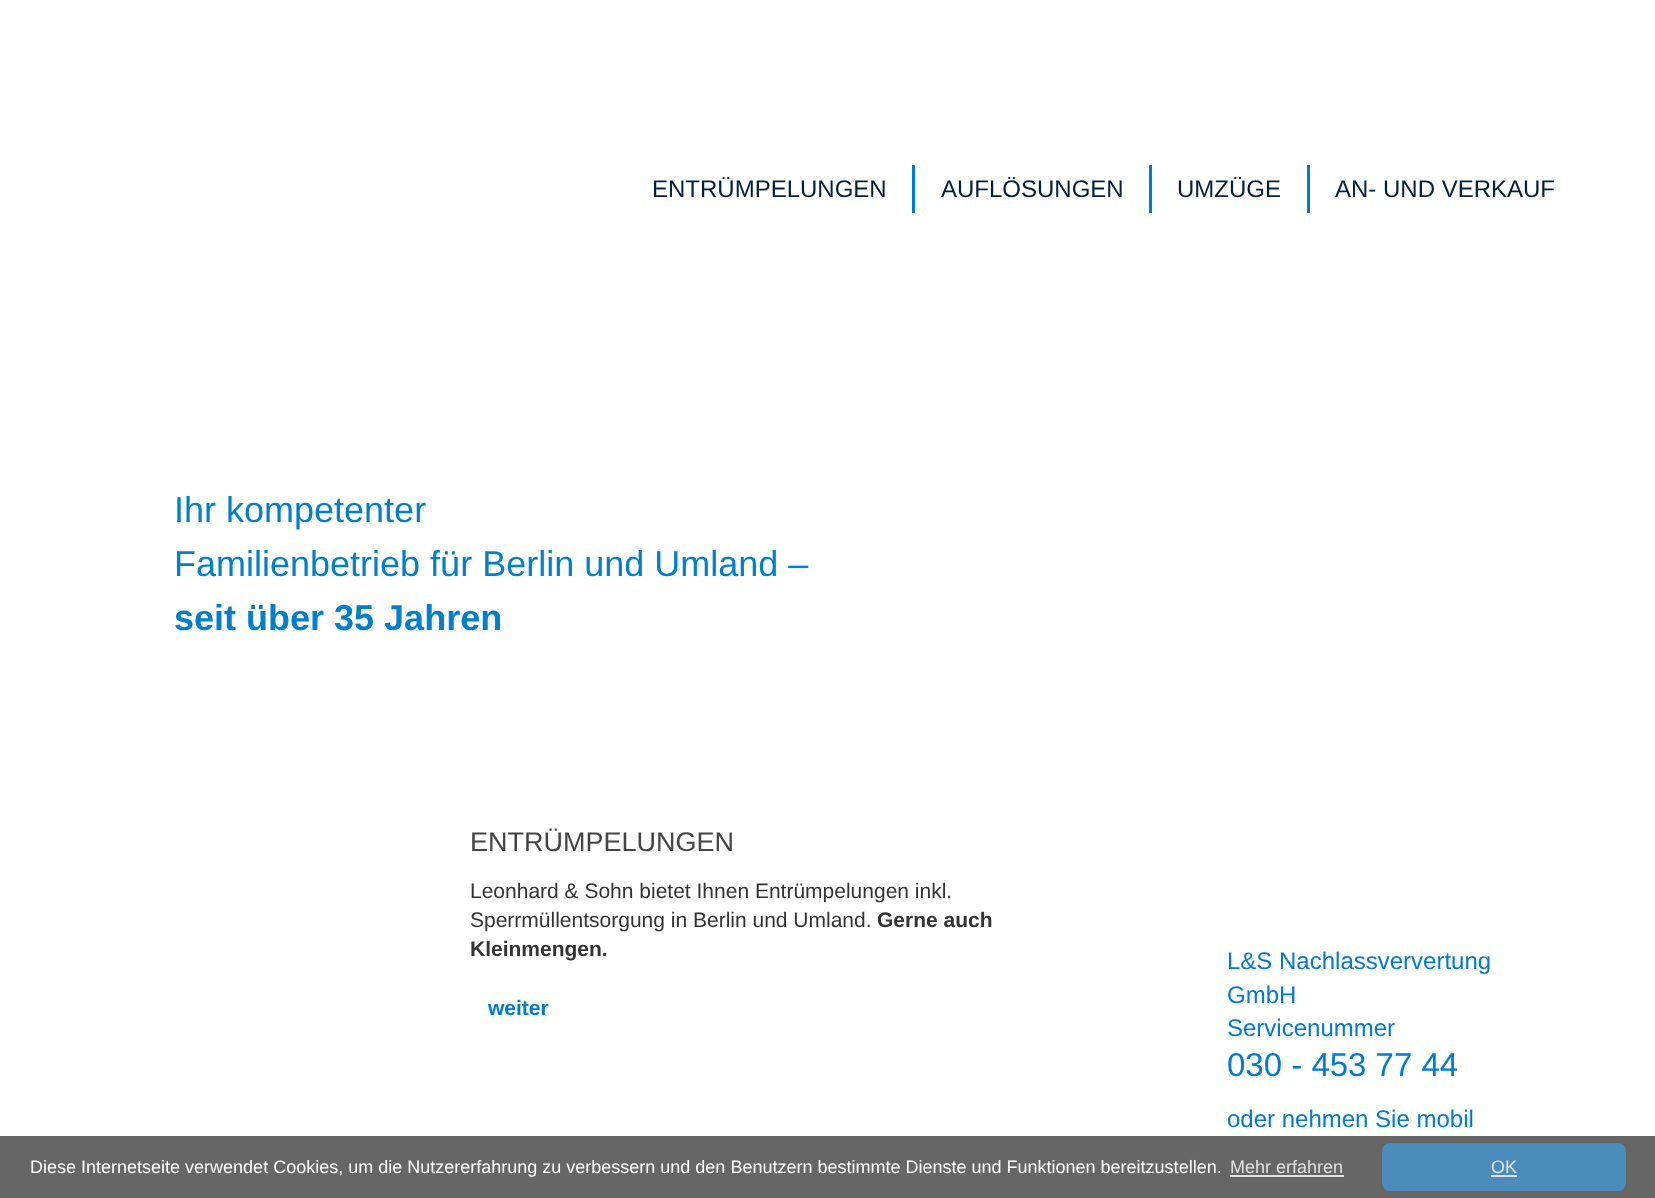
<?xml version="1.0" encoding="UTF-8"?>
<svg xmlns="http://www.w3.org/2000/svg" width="1655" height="1198">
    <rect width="100%" height="100%" fill="#FFFFFF"/>
    <text x="652" y="197" font-family="Liberation Sans" font-size="24" fill="#001F3E">ENTRÜMPELUNGEN</text>
    <rect x="912" y="165" width="3" height="48" fill="#007AD7"/>
    <text x="941" y="197" font-family="Liberation Sans" font-size="24" fill="#001F3E">AUFLÖSUNGEN</text>
    <rect x="1149" y="165" width="3" height="48" fill="#007AD7"/>
    <text x="1177" y="197" font-family="Liberation Sans" font-size="24" fill="#001F3E">UMZÜGE</text>
    <rect x="1307" y="165" width="3" height="48" fill="#007AD7"/>
    <text x="1335" y="197" font-family="Liberation Sans" font-size="24" fill="#001F3E">AN- UND VERKAUF</text>
    <text font-family="Liberation Sans" font-size="36" fill="#007FCC">
        <tspan x="174" y="522">Ihr kompetenter</tspan>
        <tspan x="174" y="576">Familienbetrieb für Berlin und Umland –</tspan>
    </text>
    <text x="174" y="630" font-family="Liberation Sans" font-size="36" font-weight="700" fill="#007FCC">seit über 35 Jahren</text>
    <text x="470" y="851" font-family="Liberation Sans" font-size="27" fill="#444444">ENTRÜMPELUNGEN</text>
    <text font-family="Liberation Sans" font-size="21" fill="#333333">
        <tspan x="470" y="898">Leonhard &amp; Sohn bietet Ihnen Entrümpelungen inkl.</tspan>
        <tspan x="470" y="927">Sperrmüllentsorgung in Berlin und Umland.</tspan>
    </text>
    <text x="877" y="927" font-family="Liberation Sans" font-size="21" font-weight="700" fill="#333333">Gerne auch</text>
    <text x="470" y="956" font-family="Liberation Sans" font-size="21" font-weight="700" fill="#333333">Kleinmengen.</text>
    <text x="488" y="1015" font-family="Liberation Sans" font-size="21" font-weight="700" fill="#0079D7">weiter</text>
    <text font-family="Liberation Sans" font-size="24" fill="#0079D7">
        <tspan x="1227" y="969">L&amp;S Nachlassververtung</tspan>
        <tspan x="1227" y="1003">GmbH</tspan>
        <tspan x="1227" y="1036">Servicenummer</tspan>
    </text>
    <text x="1227" y="1076" font-family="Liberation Sans" font-size="33" fill="#0079D7">030 - 453 77 44</text>
    <text x="1227" y="1127" font-family="Liberation Sans" font-size="24" fill="#0079D7">oder nehmen Sie mobil</text>
    <rect x="0" y="1136" width="1655" height="62" fill="#666666"/>
    <text x="30" y="1173" font-family="Liberation Sans" font-size="18" fill="#FFFFFF">Diese Internetseite verwendet Cookies, um die Nutzererfahrung zu verbessern und den Benutzern bestimmte Dienste und Funktionen bereitzustellen.</text>
    <text x="1230" y="1173" font-family="Liberation Sans" font-size="18" fill="#E0E0E0">Mehr erfahren</text>
    <rect x="1230" y="1175" width="114" height="2" fill="#E0E0E0"/>
    <rect x="1382" y="1143" width="244" height="48" rx="8" fill="#4A8DBC"/>
    <text x="1491" y="1173" font-family="Liberation Sans" font-size="18" fill="#E0E0E0">OK</text>
    <rect x="1491" y="1175" width="26" height="2" fill="#E0E0E0"/>
</svg>
